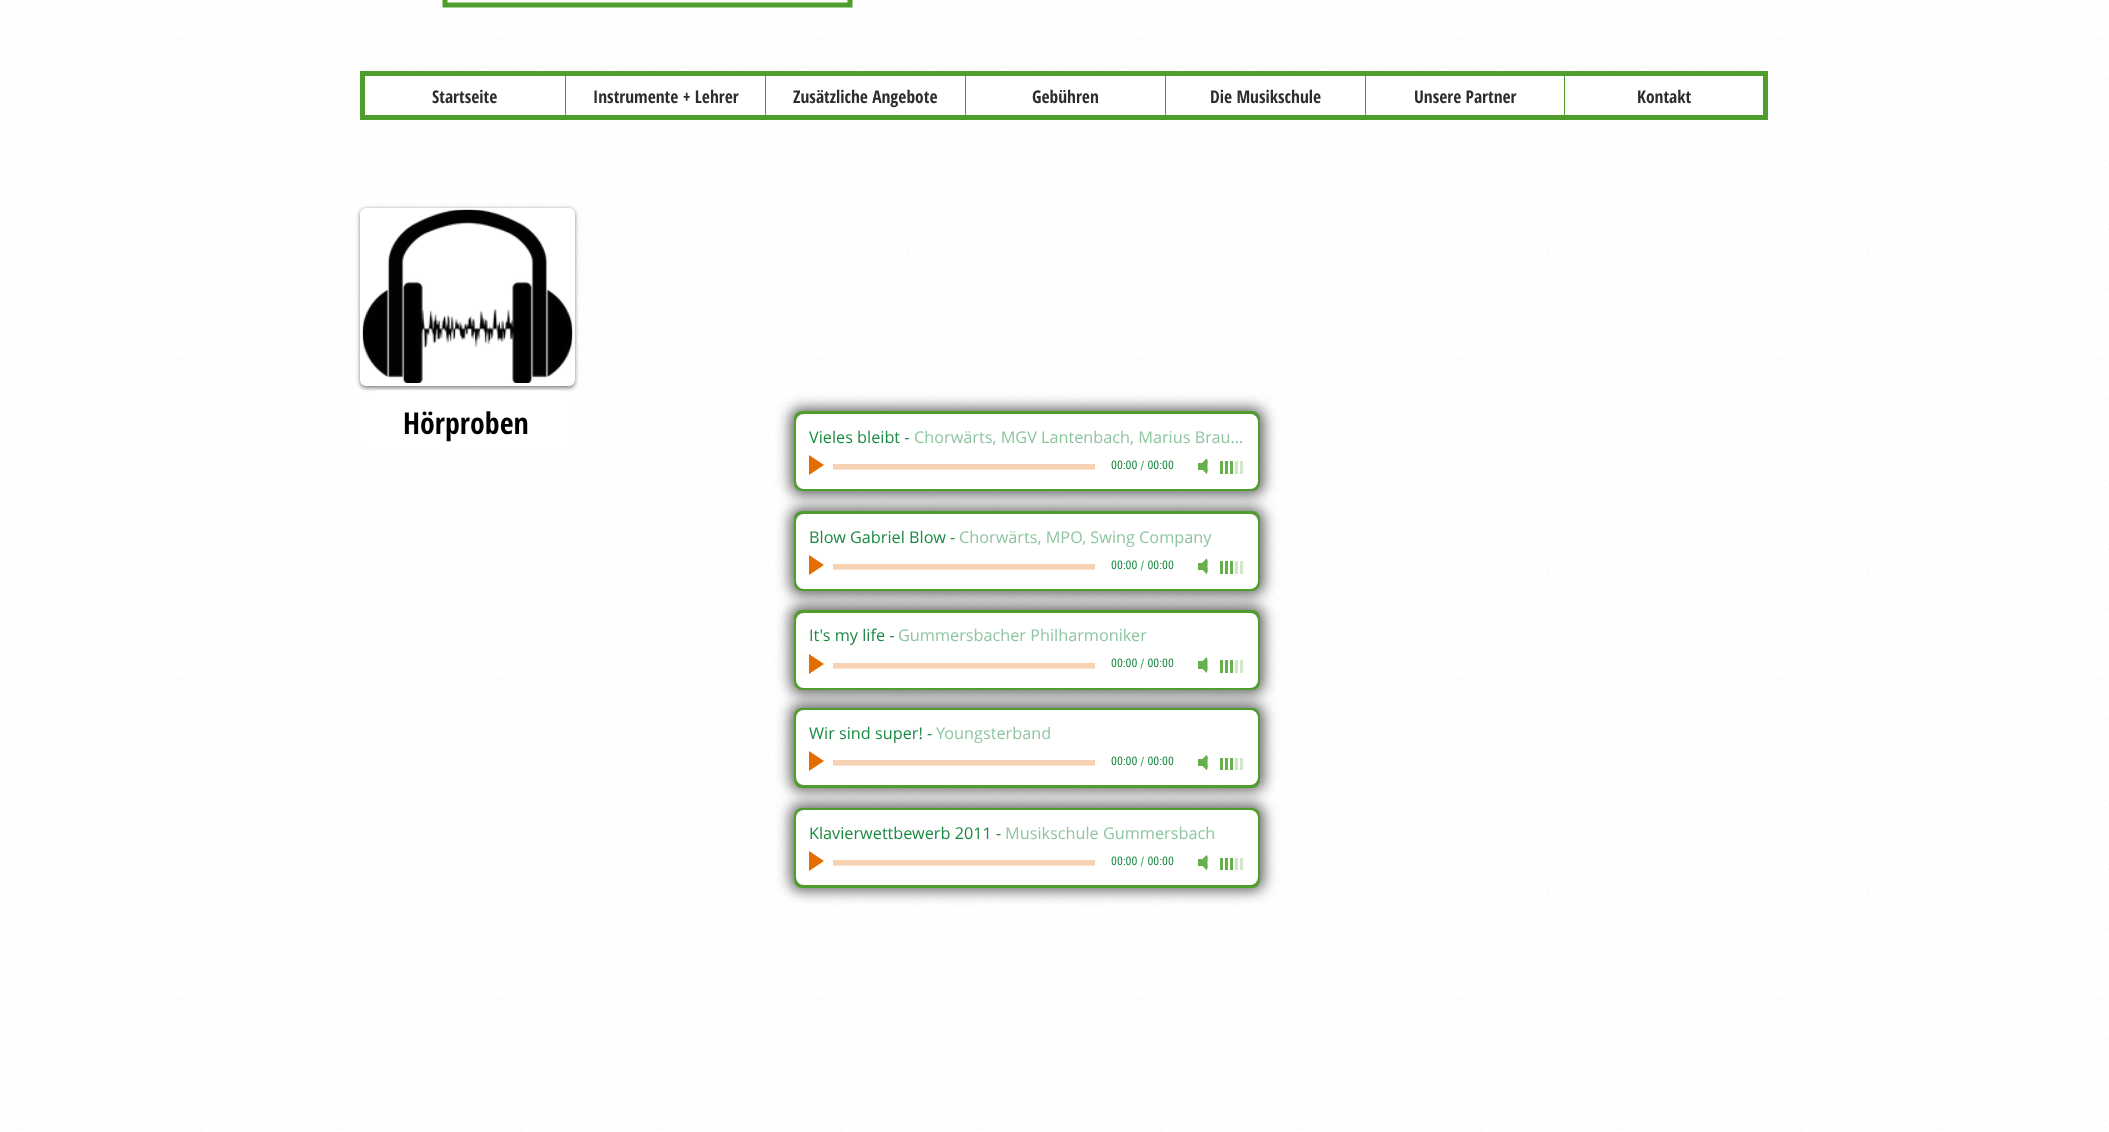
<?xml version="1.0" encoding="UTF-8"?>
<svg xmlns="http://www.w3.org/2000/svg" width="2109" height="1132">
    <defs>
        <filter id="blur1" x="-50%" y="-200%" width="200%" height="500%"><feGaussianBlur stdDeviation="2"/></filter>
        <filter id="blur2" x="-50%" y="-200%" width="200%" height="500%"><feGaussianBlur stdDeviation="7"/></filter>
    </defs>
    <rect width="100%" height="100%" fill="#FFFFFF"/>
    <image x="0" y="1" width="2109" height="1131" href="img_01.png"/>
    <rect x="445" y="1" width="405" height="2" fill="#FFFFFF"/>
    <path d="M 850 -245 V 5 H 445 V -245 Z" fill="none" stroke="#4F9E2D" stroke-width="5"/>
    <rect x="362.5" y="73.5" width="1403" height="44" fill="#FFFFFF" stroke="#4F9E2D" stroke-width="5"/>
    <text x="432" y="103" font-family="Open Sans Condensed" font-size="17.5" font-weight="700" fill="#2D2D2F">Startseite</text>
    <rect x="565" y="76" width="1" height="39" fill="#4F9E2D"/>
    <text x="593" y="103" font-family="Open Sans Condensed" font-size="17.5" font-weight="700" fill="#2D2D2F">Instrumente + Lehrer</text>
    <rect x="765" y="76" width="1" height="39" fill="#4F9E2D"/>
    <text x="793" y="103" font-family="Open Sans Condensed" font-size="17.5" font-weight="700" fill="#2D2D2F">Zusätzliche Angebote</text>
    <rect x="965" y="76" width="1" height="39" fill="#4F9E2D"/>
    <text x="1032" y="103" font-family="Open Sans Condensed" font-size="17.5" font-weight="700" fill="#2D2D2F">Gebühren</text>
    <rect x="1165" y="76" width="1" height="39" fill="#4F9E2D"/>
    <text x="1210" y="103" font-family="Open Sans Condensed" font-size="17.5" font-weight="700" fill="#2D2D2F">Die Musikschule</text>
    <rect x="1365" y="76" width="1" height="39" fill="#4F9E2D"/>
    <text x="1414" y="103" font-family="Open Sans Condensed" font-size="17.5" font-weight="700" fill="#2D2D2F">Unsere Partner</text>
    <rect x="1564" y="76" width="1" height="39" fill="#4F9E2D"/>
    <text x="1637" y="103" font-family="Open Sans Condensed" font-size="17.5" font-weight="700" fill="#2D2D2F">Kontakt</text>
    <rect x="360" y="209" width="215" height="179" rx="6" fill="#000000" fill-opacity="0.5" filter="url(#blur1)"/>
    <rect x="361.5" y="209.5" width="212" height="175" rx="4.5" fill="#FFFFFF" stroke="#FFFFFF" stroke-width="3"/>
    <image x="362" y="209" width="211" height="174" href="img_02.png"/>
    <path d="M 556 450 H 378 C 368 450 360 444 360 437 V 404 C 360 397 368 391 378 391 H 556 C 566 391 574 397 574 404 V 437 C 574 444 566 450 556 450 Z" fill="#FFFFFF"/>
    <path d="M 556 450 H 378 C 368 450 360 444.5 360 437 V 404 C 360 397 368 391 378 391 H 556 C 565.5 391 574 397 574 404 V 437 C 574 444.5 565.5 450 556 450 Z" fill="none" stroke="#FFFFFF" stroke-width="1.2"/>
    <text x="403" y="434" font-family="Open Sans Condensed" font-size="30" font-weight="700" fill="#000000">Hörproben</text>
    <rect x="790" y="408" width="474" height="87" rx="11" fill="#000000" fill-opacity="0.6" filter="url(#blur2)"/>
    <rect x="795.5" y="412.5" width="463" height="77" rx="6.5" fill="none" stroke="#4F9E2D" stroke-width="3"/>
    <rect x="796" y="414" width="462" height="75" rx="8" fill="#FFFFFF"/>
    <text x="809" y="443" font-family="Open Sans" font-size="16.25" fill="#1C8A43">Vieles bleibt -</text>
    <text x="914" y="443" font-family="Open Sans" font-size="16.25" fill="#8EC5A1">Chorwärts, MGV Lantenbach, Marius Brau…</text>
    <path d="M 809 475 V 455 L 824 465 Z" fill="#E36D01"/>
    <rect x="833" y="464" width="262" height="5" fill="#F7D3B3"/>
    <rect x="833" y="469" width="262" height="1" fill="#F9E0CA"/>
    <text x="1111" y="469" font-family="'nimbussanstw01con'" font-size="12.5" fill="#1C8A43">00:00 / 00:00</text>
    <path d="M 1206.5 458.5 L 1199 466 L 1206.5 474 C 1208.5 472 1207.5 468.5 1207.5 466 C 1207.5 464 1208.5 460.5 1206.5 458.5 Z" fill="#68B04D"/>
    <rect x="1198" y="463" width="5" height="7" fill="#68B04D"/>
    <rect x="1220" y="461" width="3" height="13" fill="#68B04D"/>
    <rect x="1225" y="461" width="3" height="13" fill="#68B04D"/>
    <rect x="1230" y="461" width="3" height="13" fill="#68B04D"/>
    <rect x="1235" y="461" width="3" height="13" fill="#D2E7CA"/>
    <rect x="1240" y="461" width="3" height="13" fill="#D2E7CA"/>
    <rect x="790" y="508" width="474" height="87" rx="11" fill="#000000" fill-opacity="0.6" filter="url(#blur2)"/>
    <rect x="795.5" y="512.5" width="463" height="77" rx="6.5" fill="none" stroke="#4F9E2D" stroke-width="3"/>
    <rect x="796" y="514" width="462" height="75" rx="8" fill="#FFFFFF"/>
    <text x="809" y="543" font-family="Open Sans" font-size="16.25" fill="#1C8A43">Blow Gabriel Blow -</text>
    <text x="959" y="543" font-family="Open Sans" font-size="16.25" fill="#8EC5A1">Chorwärts, MPO, Swing Company</text>
    <path d="M 809 575 V 555 L 824 565 Z" fill="#E36D01"/>
    <rect x="833" y="564" width="262" height="5" fill="#F7D3B3"/>
    <rect x="833" y="569" width="262" height="1" fill="#F9E0CA"/>
    <text x="1111" y="569" font-family="'nimbussanstw01con'" font-size="12.5" fill="#1C8A43">00:00 / 00:00</text>
    <path d="M 1206.5 558.5 L 1199 566 L 1206.5 574 C 1208.5 572 1207.5 568.5 1207.5 566 C 1207.5 564 1208.5 560.5 1206.5 558.5 Z" fill="#68B04D"/>
    <rect x="1198" y="563" width="5" height="7" fill="#68B04D"/>
    <rect x="1220" y="561" width="3" height="13" fill="#68B04D"/>
    <rect x="1225" y="561" width="3" height="13" fill="#68B04D"/>
    <rect x="1230" y="561" width="3" height="13" fill="#68B04D"/>
    <rect x="1235" y="561" width="3" height="13" fill="#D2E7CA"/>
    <rect x="1240" y="561" width="3" height="13" fill="#D2E7CA"/>
    <rect x="790" y="606" width="474" height="88" rx="11" fill="#000000" fill-opacity="0.6" filter="url(#blur2)"/>
    <rect x="795.5" y="611.5" width="463" height="77" rx="6.5" fill="none" stroke="#4F9E2D" stroke-width="3"/>
    <rect x="796" y="613" width="462" height="75" rx="8" fill="#FFFFFF"/>
    <text x="809" y="641" font-family="Open Sans" font-size="16.25" fill="#1C8A43">It's my life -</text>
    <text x="898" y="641" font-family="Open Sans" font-size="16.25" fill="#8EC5A1">Gummersbacher Philharmoniker</text>
    <path d="M 809 674 V 654 L 824 664 Z" fill="#E36D01"/>
    <rect x="833" y="663" width="262" height="5" fill="#F7D3B3"/>
    <rect x="833" y="668" width="262" height="1" fill="#F9E0CA"/>
    <text x="1111" y="667" font-family="'nimbussanstw01con'" font-size="12.5" fill="#1C8A43">00:00 / 00:00</text>
    <path d="M 1206.5 657 L 1199 665 L 1206.5 673 C 1208 670.5 1207.5 667.5 1207.5 665 C 1207.5 662.5 1208 659.5 1206.5 657 Z" fill="#68B04D"/>
    <rect x="1198" y="661" width="5" height="8" fill="#68B04D"/>
    <rect x="1220" y="660" width="3" height="13" fill="#68B04D"/>
    <rect x="1225" y="660" width="3" height="13" fill="#68B04D"/>
    <rect x="1230" y="660" width="3" height="13" fill="#68B04D"/>
    <rect x="1235" y="660" width="3" height="13" fill="#D2E7CA"/>
    <rect x="1240" y="660" width="3" height="13" fill="#D2E7CA"/>
    <rect x="790" y="704" width="474" height="87" rx="11" fill="#000000" fill-opacity="0.6" filter="url(#blur2)"/>
    <rect x="795.5" y="709.5" width="463" height="77" rx="6.5" fill="none" stroke="#4F9E2D" stroke-width="3"/>
    <rect x="796" y="710" width="462" height="75" rx="8" fill="#FFFFFF"/>
    <text x="809" y="739" font-family="Open Sans" font-size="16.25" fill="#1C8A43">Wir sind super! -</text>
    <text x="936" y="739" font-family="Open Sans" font-size="16.25" fill="#8EC5A1">Youngsterband</text>
    <path d="M 809 771 V 751 L 824 761 Z" fill="#E36D01"/>
    <rect x="833" y="760" width="262" height="5" fill="#F7D3B3"/>
    <rect x="833" y="765" width="262" height="1" fill="#F9E0CA"/>
    <text x="1111" y="765" font-family="'nimbussanstw01con'" font-size="12.5" fill="#1C8A43">00:00 / 00:00</text>
    <path d="M 1206.5 770 L 1199 762.5 L 1206.5 755 C 1208.5 756.5 1207.5 760.5 1207.5 762.5 C 1207.5 764.5 1208.5 768.5 1206.5 770 Z" fill="#68B04D"/>
    <rect x="1198" y="759" width="5" height="7" fill="#68B04D"/>
    <rect x="1220" y="758" width="3" height="12" fill="#68B04D"/>
    <rect x="1225" y="758" width="3" height="12" fill="#68B04D"/>
    <rect x="1230" y="758" width="3" height="12" fill="#68B04D"/>
    <rect x="1235" y="758" width="3" height="12" fill="#D2E7CA"/>
    <rect x="1240" y="758" width="3" height="12" fill="#D2E7CA"/>
    <rect x="790" y="804" width="474" height="87" rx="11" fill="#000000" fill-opacity="0.6" filter="url(#blur2)"/>
    <rect x="795.5" y="809.5" width="463" height="77" rx="6.5" fill="none" stroke="#4F9E2D" stroke-width="3"/>
    <rect x="796" y="810" width="462" height="75" rx="8" fill="#FFFFFF"/>
    <text x="809" y="839" font-family="Open Sans" font-size="16.25" fill="#1C8A43">Klavierwettbewerb 2011 -</text>
    <text x="1005" y="839" font-family="Open Sans" font-size="16.25" fill="#8EC5A1">Musikschule Gummersbach</text>
    <path d="M 809 871 V 851 L 824 861 Z" fill="#E36D01"/>
    <rect x="833" y="860" width="262" height="5" fill="#F7D3B3"/>
    <rect x="833" y="865" width="262" height="1" fill="#F9E0CA"/>
    <text x="1111" y="865" font-family="'nimbussanstw01con'" font-size="12.5" fill="#1C8A43">00:00 / 00:00</text>
    <path d="M 1206.5 870 L 1199 862.5 L 1206.5 855 C 1208.5 856.5 1207.5 860.5 1207.5 862.5 C 1207.5 864.5 1208.5 868.5 1206.5 870 Z" fill="#68B04D"/>
    <rect x="1198" y="859" width="5" height="7" fill="#68B04D"/>
    <rect x="1220" y="858" width="3" height="12" fill="#68B04D"/>
    <rect x="1225" y="858" width="3" height="12" fill="#68B04D"/>
    <rect x="1230" y="858" width="3" height="12" fill="#68B04D"/>
    <rect x="1235" y="858" width="3" height="12" fill="#D2E7CA"/>
    <rect x="1240" y="858" width="3" height="12" fill="#D2E7CA"/>
</svg>
